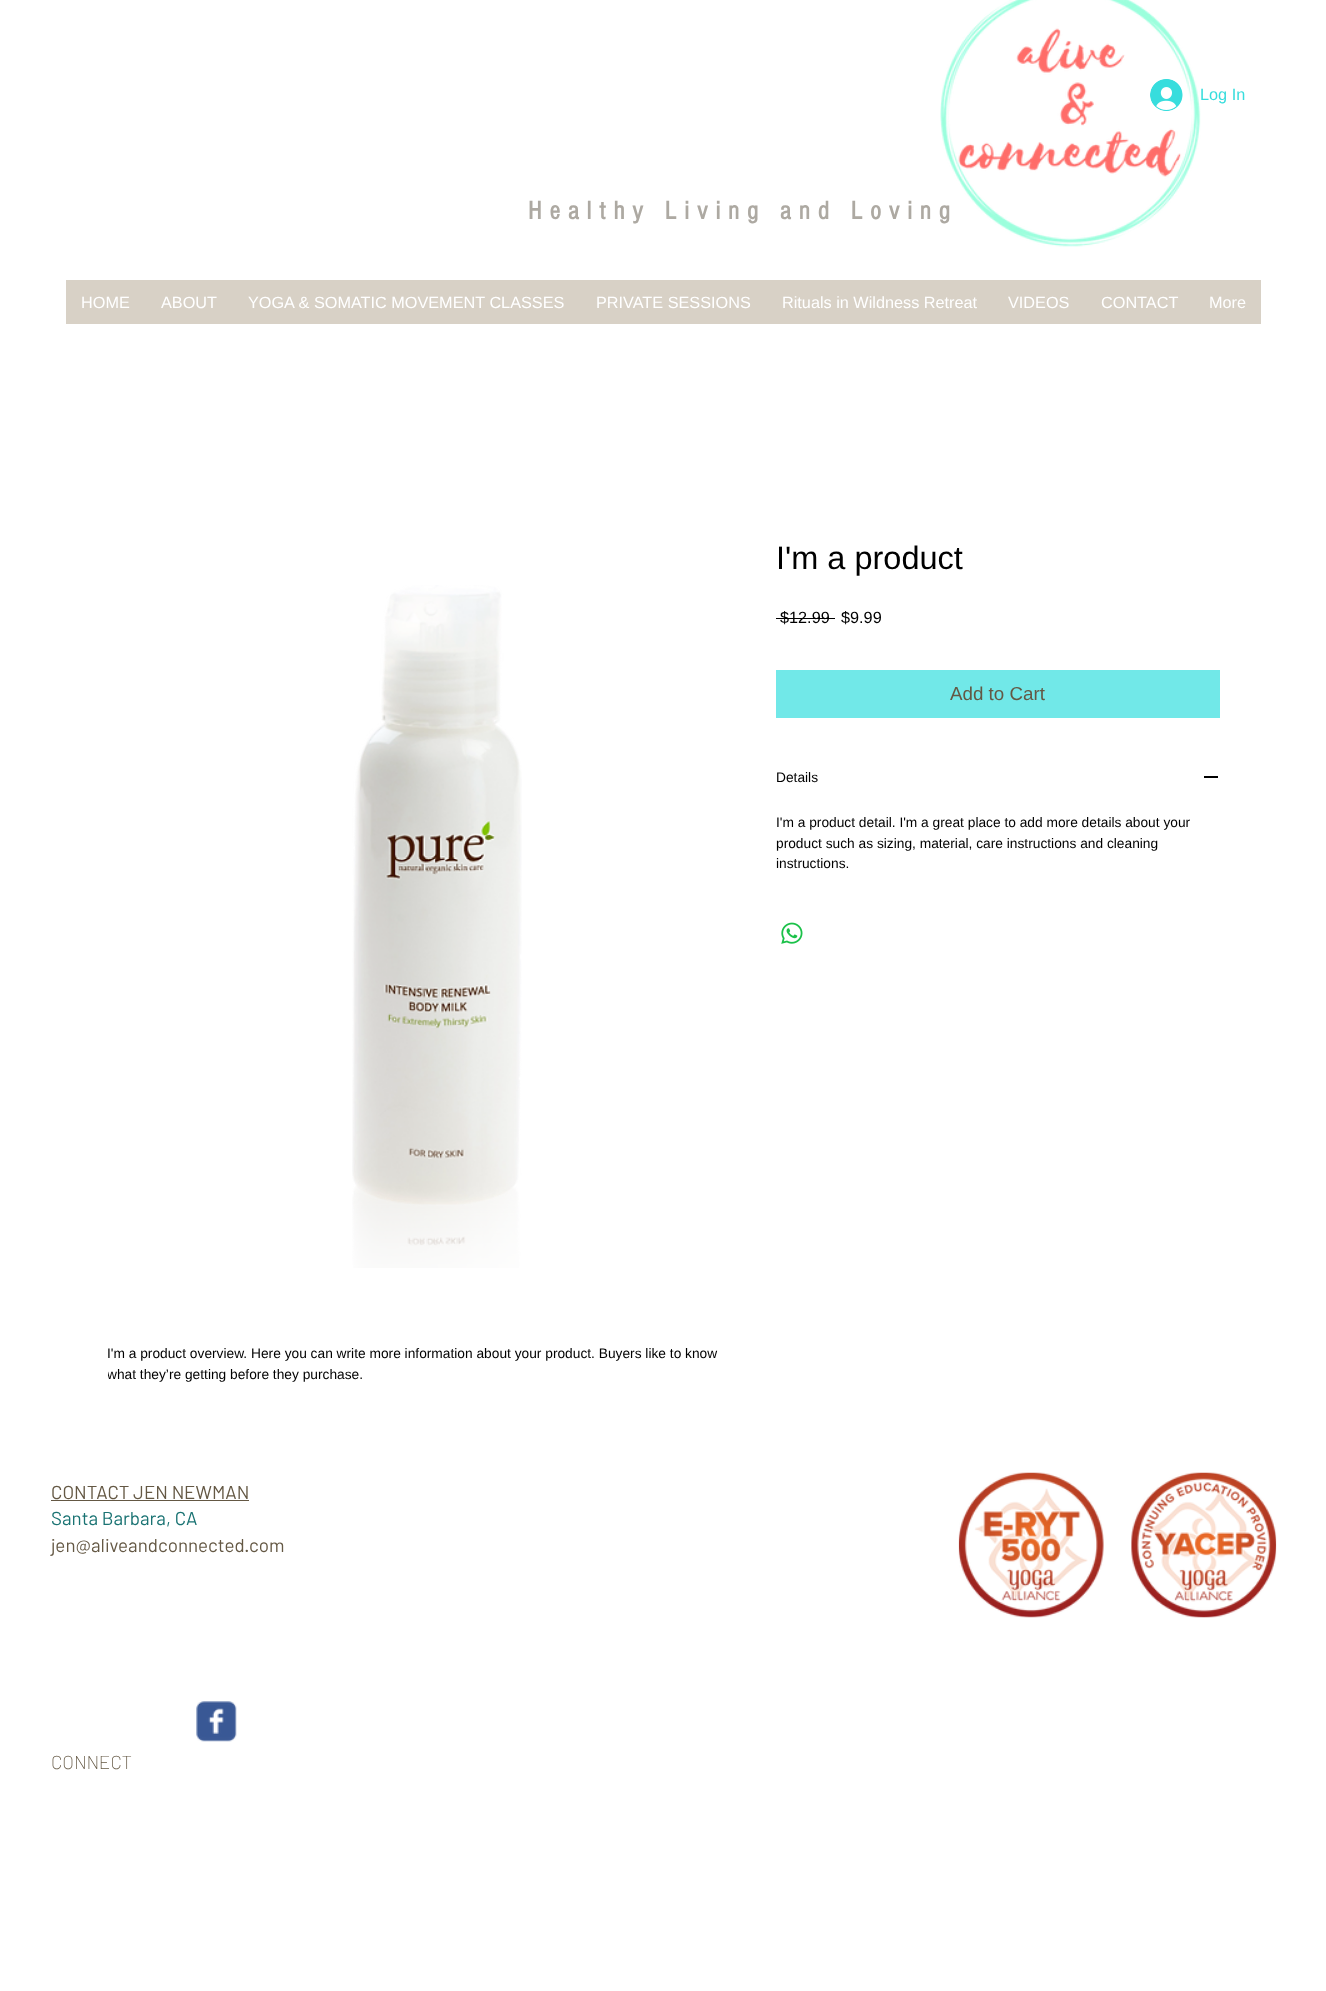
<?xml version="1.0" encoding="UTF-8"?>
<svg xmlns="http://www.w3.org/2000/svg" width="1326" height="1991">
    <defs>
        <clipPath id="clip1"><rect x="108" y="1343" width="625" height="42"/></clipPath>
    </defs>
    <rect width="100%" height="100%" fill="#FFFFFF"/>
    <image x="940" y="0" width="261" height="247" href="img_02.png"/>
    <image x="1150" y="79" width="33" height="32" href="img_01.png"/>
    <text x="1200" y="100" font-family="Liberation Sans" font-size="16.25" fill="#37DDDD">Log In</text>
    <text x="528" y="219" font-family="'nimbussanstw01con'" font-size="26.25" font-weight="700" letter-spacing="7.9" fill="#ADA9A2">Healthy Living and Loving</text>
    <rect x="66" y="280" width="1195" height="44" fill="#D8D1C6"/>
    <text x="81" y="308" font-family="Liberation Sans" font-size="16.25" fill="#FFFFFF">HOME</text>
    <text x="161" y="308" font-family="Liberation Sans" font-size="16.25" fill="#FFFFFF">ABOUT</text>
    <text x="248" y="308" font-family="Liberation Sans" font-size="16.25" fill="#FFFFFF">YOGA &amp; SOMATIC MOVEMENT CLASSES</text>
    <text x="596" y="308" font-family="Liberation Sans" font-size="16.25" fill="#FFFFFF">PRIVATE SESSIONS</text>
    <text x="782" y="308" font-family="Liberation Sans" font-size="16.25" fill="#FFFFFF">Rituals in Wildness Retreat</text>
    <text x="1008" y="308" font-family="Liberation Sans" font-size="16.25" fill="#FFFFFF">VIDEOS</text>
    <text x="1101" y="308" font-family="Liberation Sans" font-size="16.25" fill="#FFFFFF">CONTACT</text>
    <text x="1209" y="308" font-family="Liberation Sans" font-size="16.25" fill="#FFFFFF">More</text>
    <text x="776" y="569" font-family="Liberation Sans" font-size="32.5" fill="#000000">I'm a product</text>
    <text x="780" y="623" font-family="Liberation Sans" font-size="16.25" fill="#000000">$12.99</text>
    <rect x="776" y="618" width="59" height="1" fill="#000000"/>
    <text x="841" y="623" font-family="Liberation Sans" font-size="16.25" fill="#000000">$9.99</text>
    <rect x="776" y="670" width="444" height="48" fill="#71E8E8"/>
    <text x="950" y="700" font-family="Liberation Sans" font-size="18.75" fill="#645844">Add to Cart</text>
    <text x="776" y="782" font-family="Liberation Sans" font-size="13.75" fill="#000000">Details</text>
    <rect x="1204" y="776" width="14" height="2" fill="#000000"/>
    <text font-family="Liberation Sans" font-size="13.75" fill="#000000">
        <tspan x="776" y="827">I'm a product detail. I'm a great place to add more details about your</tspan>
        <tspan x="776" y="848">product such as sizing, material, care instructions and cleaning</tspan>
        <tspan x="776" y="868">instructions.</tspan>
    </text>
    <image x="781" y="922" width="22" height="22" href="img_03.png"/>
    <image x="352" y="585" width="170" height="683" href="img_04.png"/>
    <text x="107" y="1358" font-family="Liberation Sans" font-size="13.75" fill="#000000">I'm a product overview. Here you can write more information about your product. Buyers like to know</text>
    <g clip-path="url(#clip1)">
        <text x="107" y="1379" font-family="Liberation Sans" font-size="13.75" fill="#000000">what they’re getting before they purchase.</text>
    </g>
    <text x="51" y="1499" font-family="Barlow" font-size="18.75" fill="#645844">CONTACT JEN NEWMAN</text>
    <rect x="51" y="1500" width="198" height="1" fill="#645844"/>
    <text x="51" y="1525" font-family="Barlow" font-size="18.75" fill="#1A7373">Santa Barbara, CA</text>
    <text x="51" y="1552" font-family="Barlow" font-size="18.75" fill="#645844">jen@aliveandconnected.com</text>
    <image x="958" y="1472" width="146" height="146" href="img_05.png"/>
    <image x="1131" y="1472" width="146" height="146" href="img_06.png"/>
    <image x="196" y="1701" width="41" height="41" href="img_07.png"/>
    <text x="51" y="1769" font-family="Barlow" font-size="18.75" font-weight="200" fill="#645844">CONNECT</text>
</svg>
